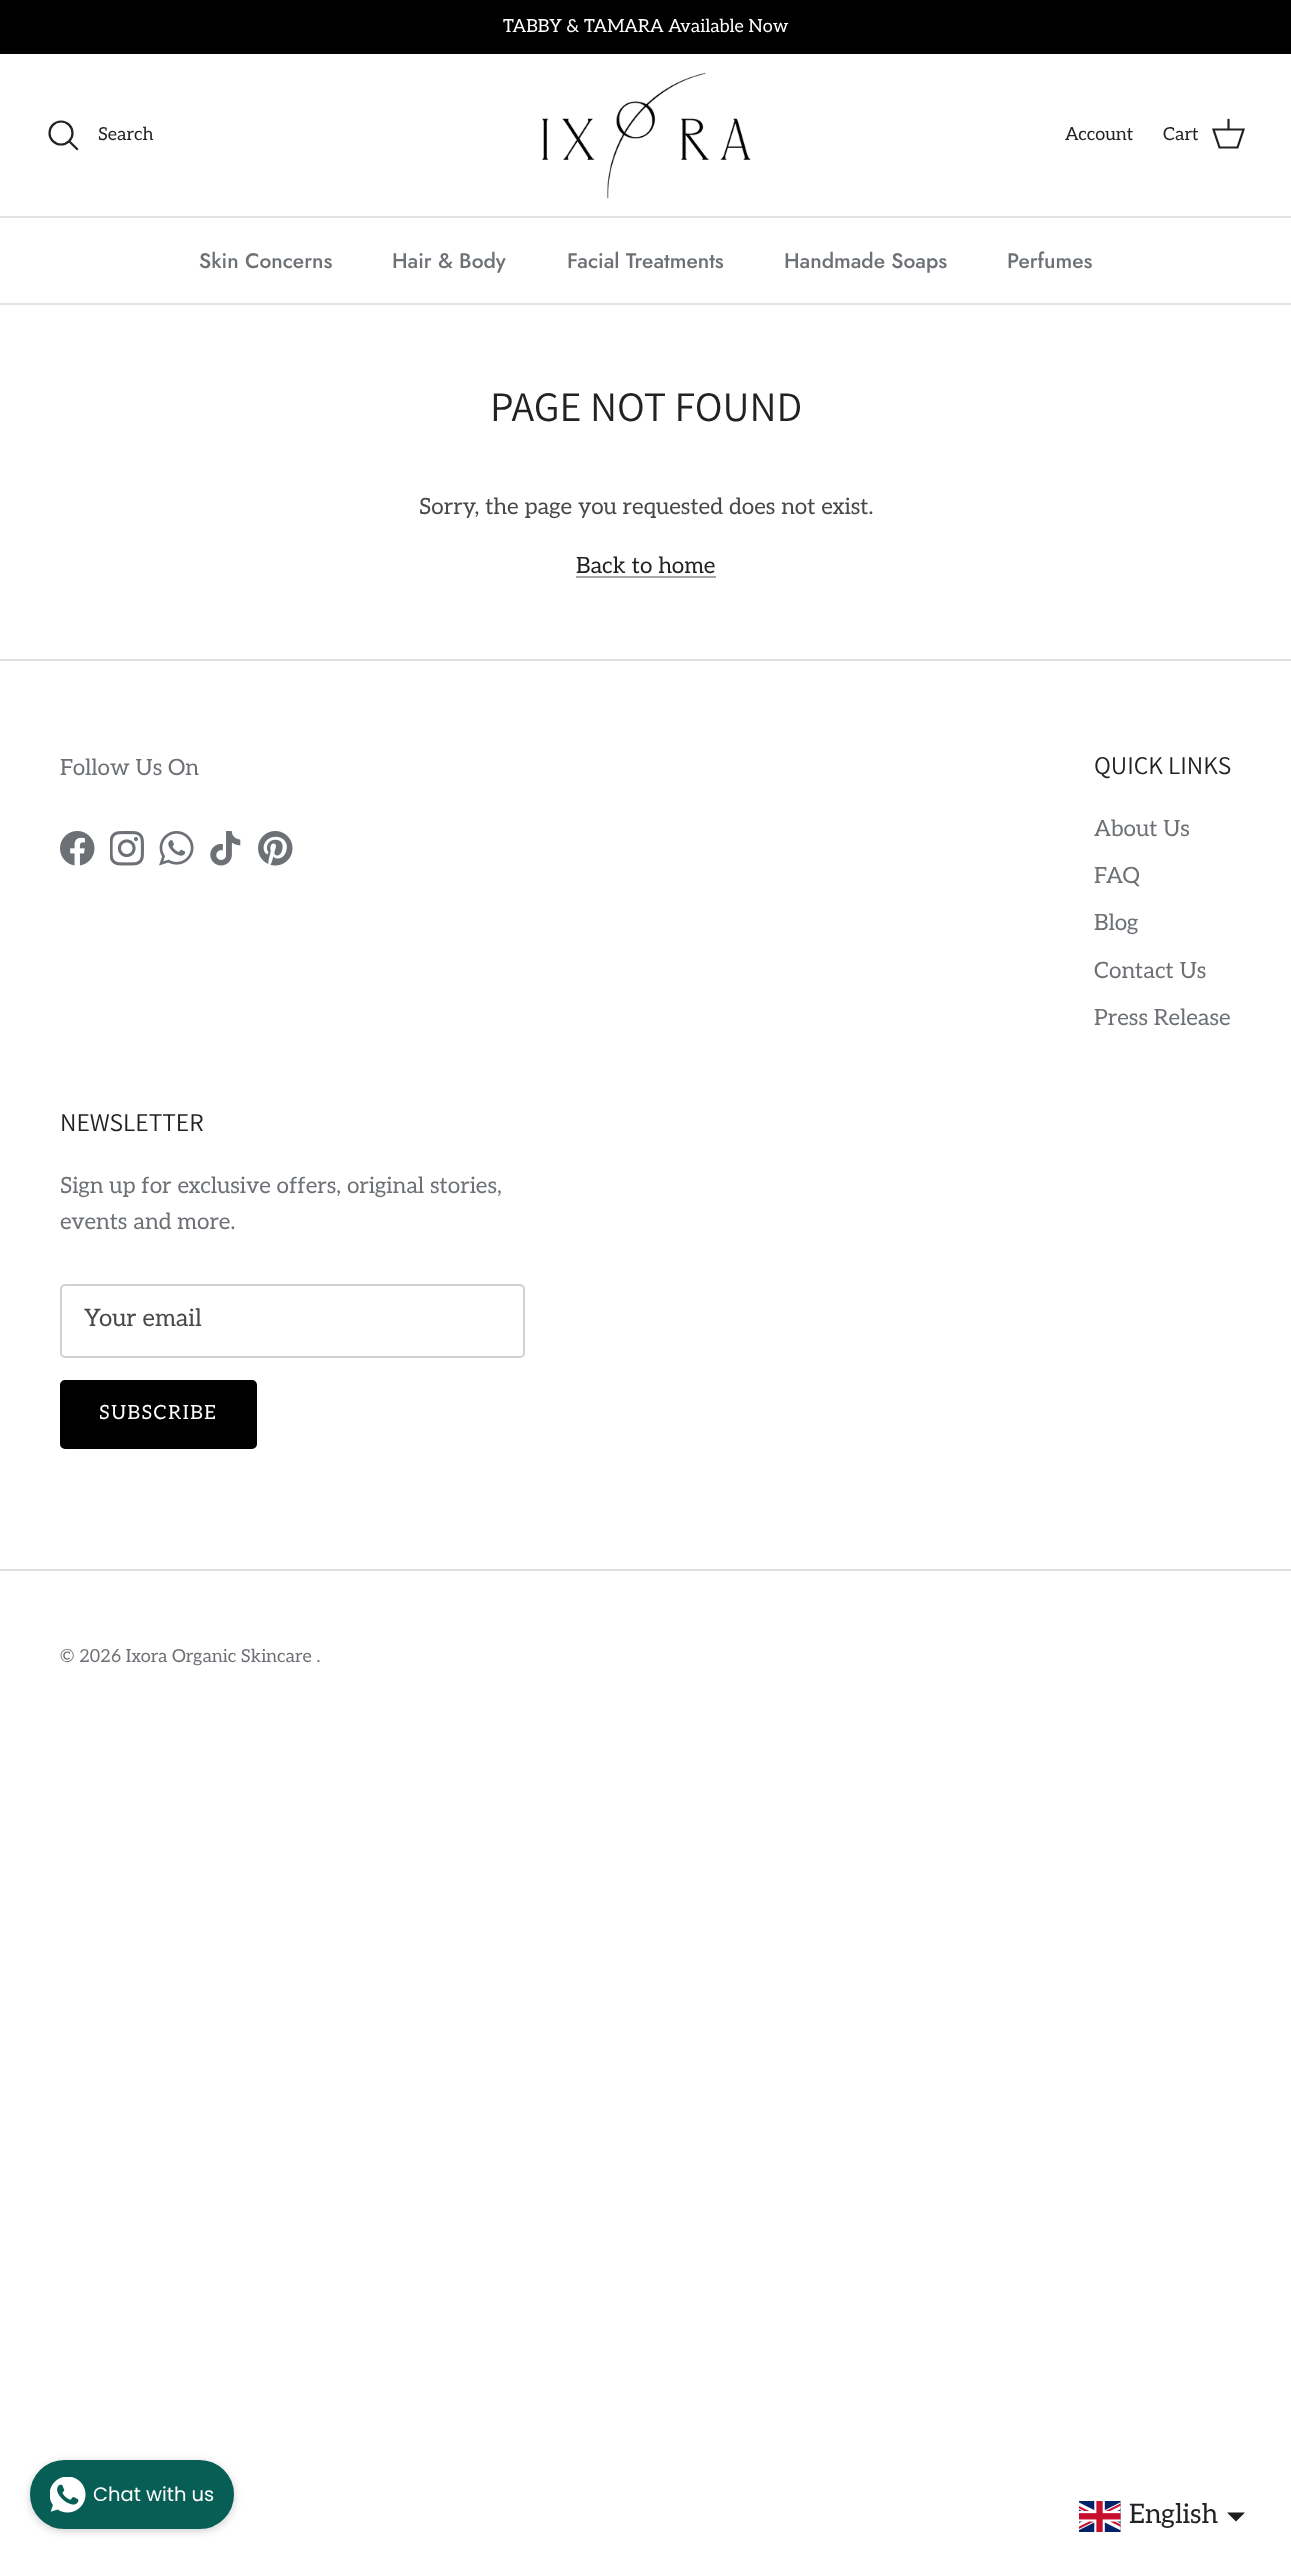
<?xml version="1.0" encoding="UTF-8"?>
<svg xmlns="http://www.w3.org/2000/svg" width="1291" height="2558">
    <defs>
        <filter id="blur1" x="-50%" y="-200%" width="200%" height="500%"><feGaussianBlur stdDeviation="4.5"/></filter>
    </defs>
    <rect width="100%" height="100%" fill="#FFFFFF"/>
    <rect x="0" y="0" width="1291" height="54" fill="#000000"/>
    <text x="503" y="32" font-family="Aleo" font-size="18" fill="#FFFFFF">TABBY &amp; TAMARA Available Now</text>
    <rect x="0" y="216" width="1291" height="2" fill="#E2E2E2"/>
    <circle cx="61" cy="133" r="11.5" fill="none" stroke="#202223" stroke-width="2.2"/>
    <text x="98" y="140" font-family="Aleo" font-size="18" fill="#202223">Search</text>
    <path d="M 70.5 142.5 L 77 149" fill="none" stroke="#202223" stroke-width="2.2" stroke-linecap="square"/>
    <image x="542" y="72" width="209" height="127" href="img_01.png"/>
    <text x="1065" y="140" font-family="Aleo" font-size="18" fill="#202223">Account</text>
    <text x="1163" y="140" font-family="Aleo" font-size="18" fill="#202223">Cart</text>
    <path d="M 1213.5 129.5 H 1243.5 L 1237.5 147.5 H 1219.5 Z" fill="none" stroke="#202223" stroke-width="2.2"/>
    <path d="M 1228.5 129 V 120" fill="none" stroke="#202223" stroke-width="2.2" stroke-linecap="square"/>
    <rect x="0" y="303" width="1291" height="2" fill="#E2E2E2"/>
    <text x="199" y="268" font-family="Jost" font-size="21" font-weight="500" fill="#6D7175">Skin Concerns</text>
    <text x="392" y="268" font-family="Jost" font-size="21" font-weight="500" fill="#6D7175">Hair &amp; Body</text>
    <text x="567" y="268" font-family="Jost" font-size="21" font-weight="500" fill="#6D7175">Facial Treatments</text>
    <text x="784" y="268" font-family="Jost" font-size="21" font-weight="500" fill="#6D7175">Handmade Soaps</text>
    <text x="1007" y="268" font-family="Jost" font-size="21" font-weight="500" fill="#6D7175">Perfumes</text>
    <text x="490" y="421" font-family="Assistant" font-size="42" fill="#202223">PAGE NOT FOUND</text>
    <text x="419" y="514" font-family="Aleo" font-size="22.5" fill="#484848">Sorry, the page you requested does not exist.</text>
    <text x="576" y="573" font-family="Aleo" font-size="22.5" fill="#202223">Back to home</text>
    <rect x="576" y="576" width="140" height="2" fill="#A6A7A7"/>
    <rect x="0" y="659" width="1291" height="2" fill="#E0E0E0"/>
    <text x="60" y="775" font-family="Aleo" font-size="22.5" fill="#6D7175">Follow Us On</text>
    <image x="60" y="831" width="35" height="35" href="img_02.png"/>
    <image x="110" y="831" width="34" height="35" href="img_03.png"/>
    <image x="159" y="831" width="35" height="35" href="img_04.png"/>
    <image x="210" y="831" width="31" height="35" href="img_05.png"/>
    <image x="258" y="831" width="35" height="35" href="img_06.png"/>
    <text x="1094" y="774" font-family="Assistant" font-size="25.5" fill="#202223">QUICK LINKS</text>
    <text x="1094" y="836" font-family="Aleo" font-size="22.5" fill="#6D7175">About Us</text>
    <text x="1094" y="883" font-family="Aleo" font-size="22.5" fill="#6D7175">FAQ</text>
    <text x="1094" y="930" font-family="Aleo" font-size="22.5" fill="#6D7175">Blog</text>
    <text x="1094" y="978" font-family="Aleo" font-size="22.5" fill="#6D7175">Contact Us</text>
    <text x="1094" y="1025" font-family="Aleo" font-size="22.5" fill="#6D7175">Press Release</text>
    <text x="60" y="1131" font-family="Assistant" font-size="25.5" fill="#202223">NEWSLETTER</text>
    <text font-family="Aleo" font-size="22.5" fill="#6D7175">
        <tspan x="60" y="1193">Sign up for exclusive offers, original stories,</tspan>
        <tspan x="60" y="1229">events and more.</tspan>
    </text>
    <rect x="61" y="1285" width="463" height="72" rx="4" fill="none" stroke="#D1D1D1" stroke-width="2"/>
    <text x="84" y="1326" font-family="Aleo" font-size="24" fill="#484848">Your email</text>
    <rect x="61" y="1381" width="195" height="67" rx="4" fill="#000000" stroke="#000000" stroke-width="2"/>
    <text x="99" y="1419" font-family="Aleo" font-size="19.5" letter-spacing="1.5" fill="#FFFFFF">SUBSCRIBE</text>
    <rect x="0" y="1569" width="1291" height="2" fill="#E0E0E0"/>
    <text x="60" y="1662" font-family="Aleo" font-size="18" fill="#6D7175">© 2026 Ixora Organic Skincare .</text>
    <rect x="30" y="2462" width="204" height="69" rx="34.5" fill="#1B1B1B" fill-opacity="0.2" filter="url(#blur1)"/>
    <rect x="31" y="2461" width="202" height="67" rx="33.5" fill="#075E54" stroke="#075E54" stroke-width="2"/>
    <image x="50" y="2477" width="36" height="36" href="img_07.png"/>
    <text x="93" y="2501" font-family="Poppins" font-size="19.5" fill="#FFFFFF">Chat with us</text>
    <image x="1079" y="2501" width="42" height="31" href="img_08.png"/>
    <text x="1129" y="2523" font-family="Aleo" font-size="27" fill="#202223">English</text>
    <path d="M 1227 2512.5 H 1245 L 1236 2521.5 Z" fill="#1D1D1D"/>
</svg>
